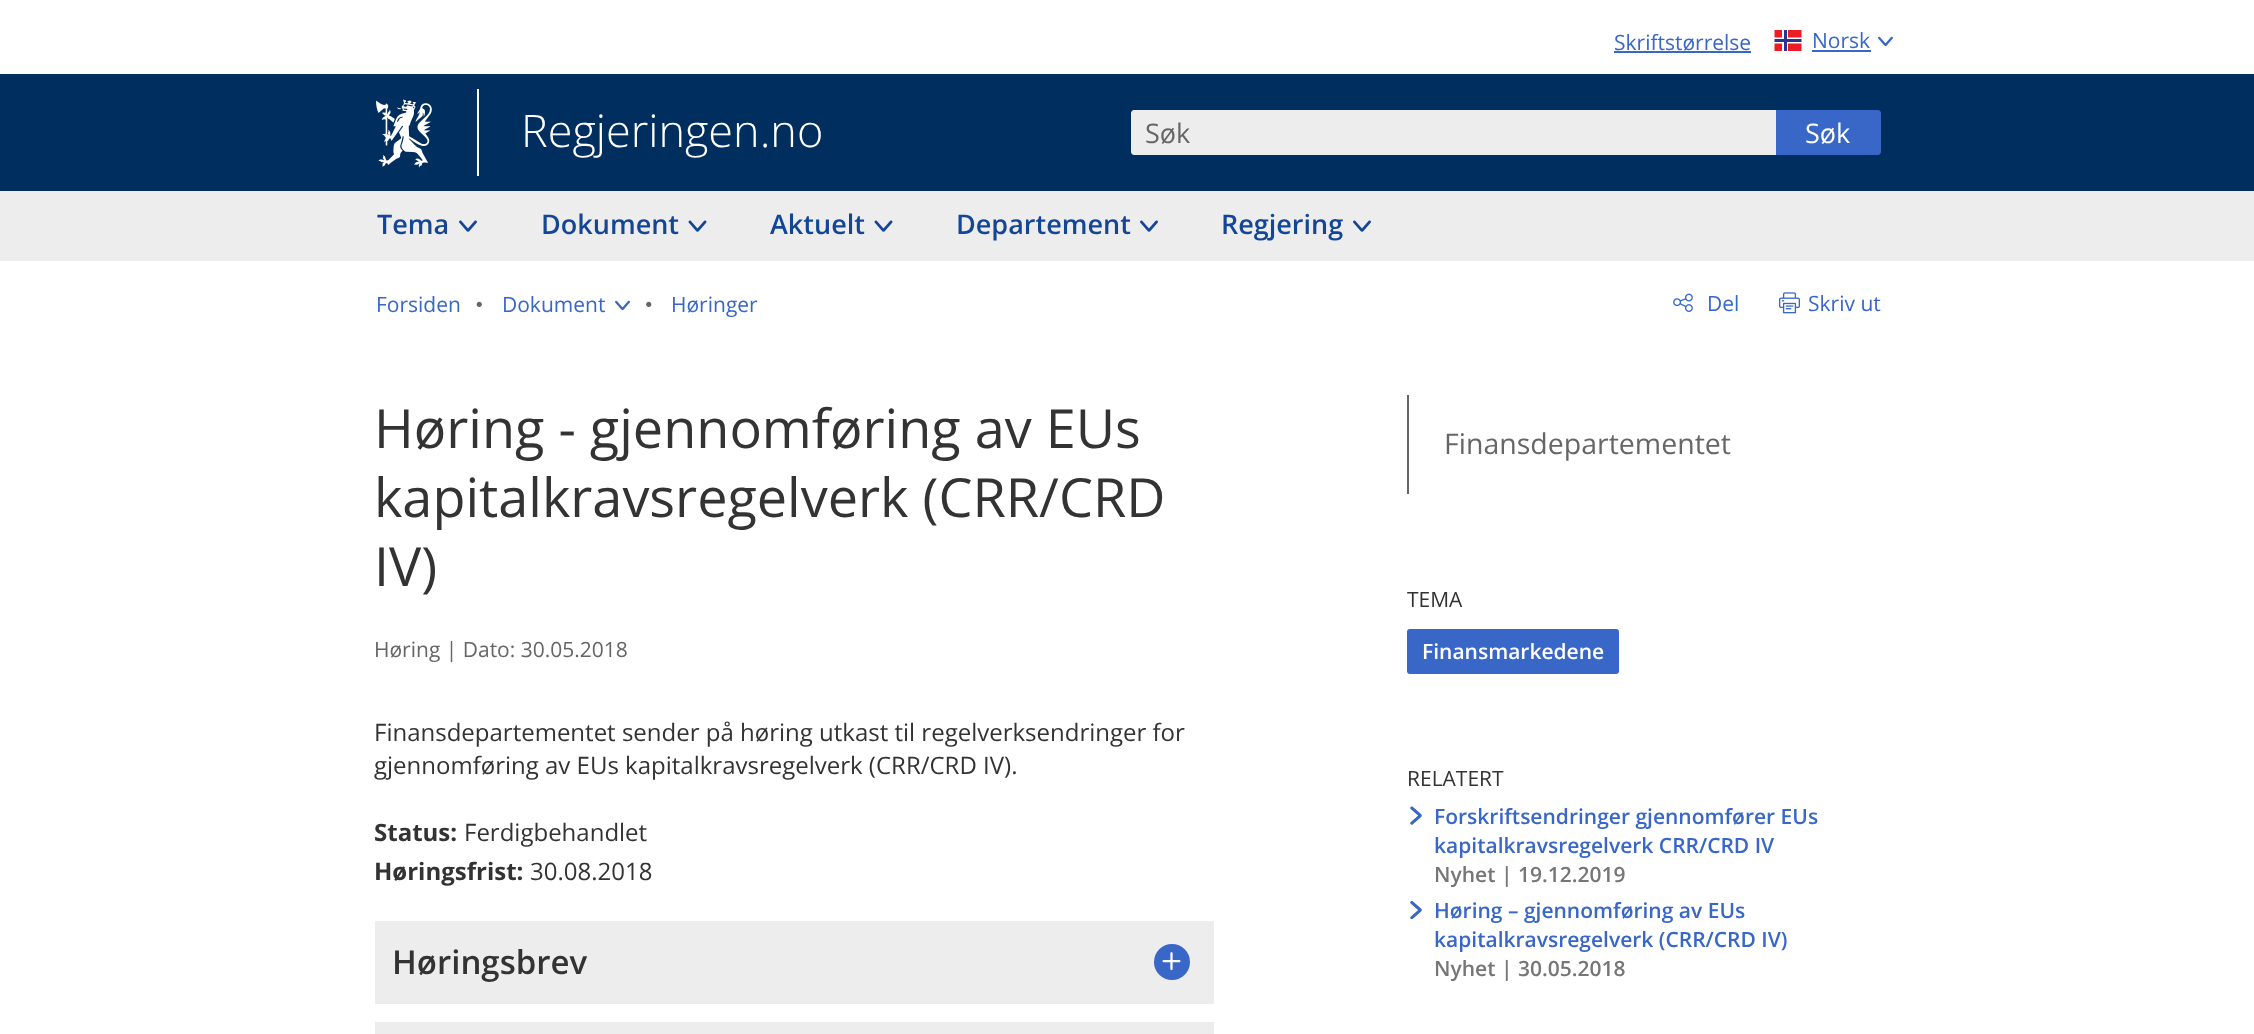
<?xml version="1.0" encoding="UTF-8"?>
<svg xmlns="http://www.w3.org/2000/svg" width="2254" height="1034">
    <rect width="100%" height="100%" fill="#FFFFFF"/>
    <text x="1614" y="50" font-family="Open Sans" font-size="21" fill="#3867C8">Skriftstørrelse</text>
    <rect x="1614" y="51" width="137" height="2" fill="#3867C8"/>
    <image x="1774" y="30" width="28" height="21" href="img_01.png"/>
    <text x="1812" y="48" font-family="Open Sans" font-size="21" fill="#3867C8">Norsk</text>
    <rect x="1812" y="50" width="59" height="2" fill="#3867C8"/>
    <image x="1878" y="36" width="15" height="11" href="img_02.png"/>
    <rect x="0" y="74" width="2254" height="117" fill="#002E5E"/>
    <image x="376" y="99" width="56" height="69" href="img_03.png"/>
    <rect x="477" y="89" width="2" height="87" fill="#FFFFFF"/>
    <text x="521" y="147" font-family="Open Sans" font-size="45" font-weight="300" fill="#FFFFFF">Regjeringen.no</text>
    <rect x="0" y="191" width="2254" height="70" fill="#EDEDED"/>
    <path d="M 1134 110 H 1776 V 155 H 1134 C 1132.5 155 1131 153.5 1131 152 V 113 C 1131 111.5 1132.5 110 1134 110 Z" fill="#EDEDED"/>
    <text x="1145" y="143" font-family="Open Sans" font-size="27" fill="#666666">Søk</text>
    <path d="M 1776 110 H 1878 C 1879.5 110 1881 111.5 1881 113 V 152 C 1881 153.5 1879.5 155 1878 155 H 1776 Z" fill="#3867C8"/>
    <text x="1805" y="143" font-family="Open Sans" font-size="27" fill="#FFFFFF">Søk</text>
    <text x="377" y="234" font-family="Open Sans" font-size="27" font-weight="600" fill="#144696">Tema</text>
    <image x="459" y="220" width="18" height="12" href="img_04.png"/>
    <text x="541" y="234" font-family="Open Sans" font-size="27" font-weight="600" fill="#144696">Dokument</text>
    <image x="688" y="220" width="19" height="12" href="img_05.png"/>
    <text x="770" y="234" font-family="Open Sans" font-size="27" font-weight="600" fill="#144696">Aktuelt</text>
    <image x="874" y="220" width="19" height="12" href="img_05.png"/>
    <text x="956" y="234" font-family="Open Sans" font-size="27" font-weight="600" fill="#144696">Departement</text>
    <image x="1140" y="220" width="18" height="12" href="img_04.png"/>
    <text x="1221" y="234" font-family="Open Sans" font-size="27" font-weight="600" fill="#144696">Regjering</text>
    <image x="1353" y="220" width="18" height="12" href="img_04.png"/>
    <text x="376" y="312" font-family="Open Sans" font-size="21" fill="#3867C8">Forsiden</text>
    <image x="476" y="301" width="6" height="6" href="img_06.png"/>
    <text x="502" y="312" font-family="Open Sans" font-size="21" fill="#3867C8">Dokument</text>
    <image x="615" y="300" width="15" height="11" href="img_02.png"/>
    <image x="646" y="301" width="6" height="6" href="img_07.png"/>
    <text x="671" y="312" font-family="Open Sans" font-size="21" fill="#3867C8">Høringer</text>
    <image x="1673" y="293" width="20" height="19" href="img_08.png"/>
    <text x="1707" y="311" font-family="Open Sans" font-size="21" fill="#3867C8">Del</text>
    <image x="1779" y="292" width="21" height="22" href="img_09.png"/>
    <text x="1808" y="311" font-family="Open Sans" font-size="21" fill="#3867C8">Skriv ut</text>
    <text font-family="Open Sans" font-size="54" fill="#333333">
        <tspan x="374" y="448">Høring - gjennomføring av EUs</tspan>
        <tspan x="374" y="517">kapitalkravsregelverk (CRR/CRD</tspan>
        <tspan x="374" y="586">IV)</tspan>
    </text>
    <text x="374" y="657" font-family="Open Sans" font-size="21" fill="#666666">Høring | Dato: 30.05.2018</text>
    <text font-family="Open Sans" font-size="24" fill="#333333">
        <tspan x="374" y="741">Finansdepartementet sender på høring utkast til regelverksendringer for</tspan>
        <tspan x="374" y="774">gjennomføring av EUs kapitalkravsregelverk (CRR/CRD IV).</tspan>
    </text>
    <text x="374" y="841" font-family="Open Sans" font-size="24" font-weight="700" fill="#333333">Status:</text>
    <text x="464" y="841" font-family="Open Sans" font-size="24" fill="#333333">Ferdigbehandlet</text>
    <text x="374" y="880" font-family="Open Sans" font-size="24" font-weight="700" fill="#333333">Høringsfrist:</text>
    <text x="530" y="880" font-family="Open Sans" font-size="24" fill="#333333">30.08.2018</text>
    <rect x="375" y="921" width="839" height="83" fill="#EDEDED"/>
    <text x="392" y="974" font-family="Open Sans" font-size="33" font-weight="600" fill="#333333">Høringsbrev</text>
    <circle cx="1172" cy="962" r="18" fill="#3867C8"/>
    <image x="1162" y="952" width="19" height="19" href="img_10.png"/>
    <rect x="375" y="1022" width="839" height="12" fill="#EDEDED"/>
    <rect x="1407" y="395" width="2" height="99" fill="#666666"/>
    <text x="1444" y="454" font-family="Open Sans" font-size="28.5" fill="#666666">Finansdepartementet</text>
    <text x="1407" y="607" font-family="Open Sans" font-size="21" fill="#333333">TEMA</text>
    <rect x="1407" y="629" width="212" height="45" rx="3" fill="#3867C8"/>
    <text x="1422" y="659" font-family="Open Sans" font-size="21" font-weight="600" fill="#FFFFFF">Finansmarkedene</text>
    <text x="1407" y="786" font-family="Open Sans" font-size="21" fill="#333333">RELATERT</text>
    <image x="1410" y="806" width="12" height="19" href="img_11.png"/>
    <image x="1410" y="806" width="12" height="19" href="img_12.png"/>
    <text font-family="Open Sans" font-size="21" font-weight="600" fill="#3867C8">
        <tspan x="1434" y="824">Forskriftsendringer gjennomfører EUs</tspan>
        <tspan x="1434" y="853">kapitalkravsregelverk CRR/CRD IV</tspan>
    </text>
    <text x="1434" y="882" font-family="Open Sans" font-size="21" font-weight="600" fill="#767676">Nyhet | 19.12.2019</text>
    <image x="1410" y="901" width="12" height="19" href="img_13.png"/>
    <image x="1410" y="901" width="12" height="19" href="img_14.png"/>
    <text font-family="Open Sans" font-size="21" font-weight="600" fill="#3867C8">
        <tspan x="1434" y="918">Høring – gjennomføring av EUs</tspan>
        <tspan x="1434" y="947">kapitalkravsregelverk (CRR/CRD IV)</tspan>
    </text>
    <text x="1434" y="976" font-family="Open Sans" font-size="21" font-weight="600" fill="#767676">Nyhet | 30.05.2018</text>
</svg>
